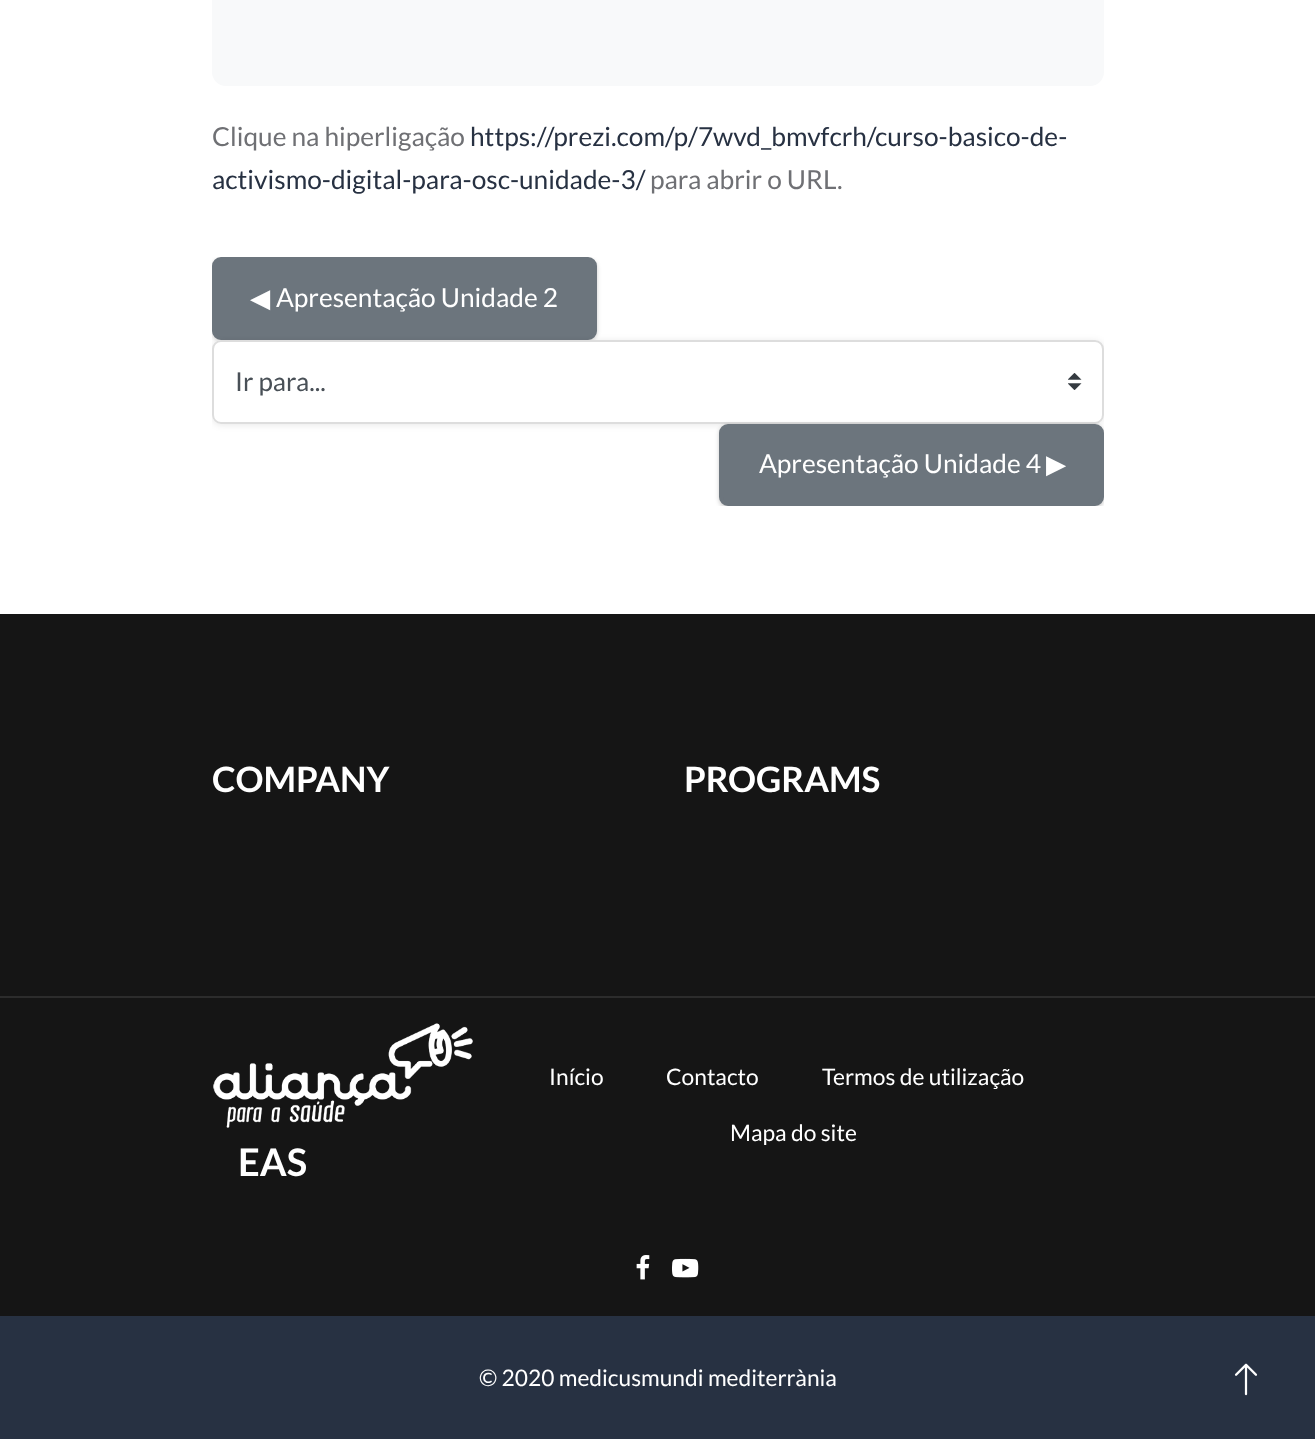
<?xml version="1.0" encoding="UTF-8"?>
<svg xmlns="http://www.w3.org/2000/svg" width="1315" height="1439">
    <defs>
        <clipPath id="clip1"><rect x="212" y="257" width="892" height="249"/></clipPath>
        <filter id="blur1" x="-50%" y="-200%" width="200%" height="500%"><feGaussianBlur stdDeviation="2"/></filter>
        <filter id="blur2" x="-50%" y="-200%" width="200%" height="500%"><feGaussianBlur stdDeviation="3.5"/></filter>
    </defs>
    <rect width="100%" height="100%" fill="#FFFFFF"/>
    <rect x="212" y="-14" width="892" height="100" rx="14" fill="#F8F9FA"/>
    <text x="212" y="146" font-family="Lato" font-size="26.25" fill="#6F7074">Clique na hiperligação</text>
    <text x="470" y="146" font-family="Lato" font-size="26.25" fill="#273142">https://prezi.com/p/7wvd_bmvfcrh/curso-basico-de-</text>
    <text x="212" y="189" font-family="Lato" font-size="26.25" fill="#273142">activismo-digital-para-osc-unidade-3/</text>
    <text x="650" y="189" font-family="Lato" font-size="26.25" fill="#6F7074">para abrir o URL.</text>
    <g clip-path="url(#clip1)">
        <rect x="212" y="259" width="385" height="82" rx="9" fill="#000000" fill-opacity="0.2" filter="url(#blur1)"/>
    </g>
    <rect x="214" y="259" width="381" height="79" rx="7" fill="#6C757D" stroke="#6C757D" stroke-width="4"/>
    <text x="250" y="307" font-family="DejaVu Sans" font-size="26.25" fill="#FFFFFF">◀︎</text>
    <text x="276" y="307" font-family="Lato" font-size="26.25" fill="#FFFFFF">Apresentação Unidade 2</text>
    <g clip-path="url(#clip1)">
        <rect x="212" y="341" width="892" height="84" rx="9" fill="#000000" fill-opacity="0.09" filter="url(#blur2)"/>
    </g>
    <rect x="212" y="340" width="892" height="84" rx="9" fill="#FFFFFF"/>
    <image x="1068" y="373" width="14" height="17" href="img_01.png"/>
    <rect x="213" y="341" width="890" height="82" rx="8" fill="none" stroke="#DDDDDD" stroke-width="2"/>
    <text x="235" y="391" font-family="Lato" font-size="26" fill="#495057">Ir para...</text>
    <g clip-path="url(#clip1)">
        <rect x="719" y="425" width="385" height="83" rx="9" fill="#000000" fill-opacity="0.2" filter="url(#blur1)"/>
    </g>
    <rect x="721" y="426" width="381" height="78" rx="7" fill="#6C757D" stroke="#6C757D" stroke-width="4"/>
    <text x="759" y="473" font-family="Lato" font-size="26.25" fill="#FFFFFF">Apresentação Unidade 4</text>
    <text x="1046" y="473" font-family="DejaVu Sans" font-size="26.25" fill="#FFFFFF">▶︎</text>
    <rect x="0" y="614" width="1315" height="382" fill="#151515"/>
    <text x="212" y="792" font-family="Lato" font-size="35" font-weight="700" fill="#FFFFFF">COMPANY</text>
    <text x="684" y="792" font-family="Lato" font-size="35" font-weight="700" fill="#FFFFFF">PROGRAMS</text>
    <rect x="0" y="998" width="1315" height="318" fill="#151515"/>
    <rect x="0" y="996" width="1315" height="2" fill="#2C2C2C"/>
    <text x="549" y="1085" font-family="Lato" font-size="22.75" fill="#FFFFFF">Início</text>
    <text x="666" y="1085" font-family="Lato" font-size="22.75" fill="#FFFFFF">Contacto</text>
    <text x="822" y="1085" font-family="Lato" font-size="22.75" fill="#FFFFFF">Termos de utilização</text>
    <text x="730" y="1141" font-family="Lato" font-size="22.75" fill="#FFFFFF">Mapa do site</text>
    <image x="213" y="1023" width="260" height="105" href="img_02.png"/>
    <text x="238" y="1176" font-family="Lato" font-size="38" font-weight="700" fill="#FFFFFF">EAS</text>
    <image x="636" y="1255" width="14" height="25" href="img_03.png"/>
    <image x="672" y="1258" width="27" height="20" href="img_04.png"/>
    <rect x="0" y="1316" width="1315" height="123" fill="#273142"/>
    <text x="479" y="1386" font-family="Lato" font-size="22.75" fill="#FFFFFF">© 2020 medicusmundi mediterrània</text>
    <image x="1234" y="1363" width="24" height="33" href="img_05.png"/>
</svg>
